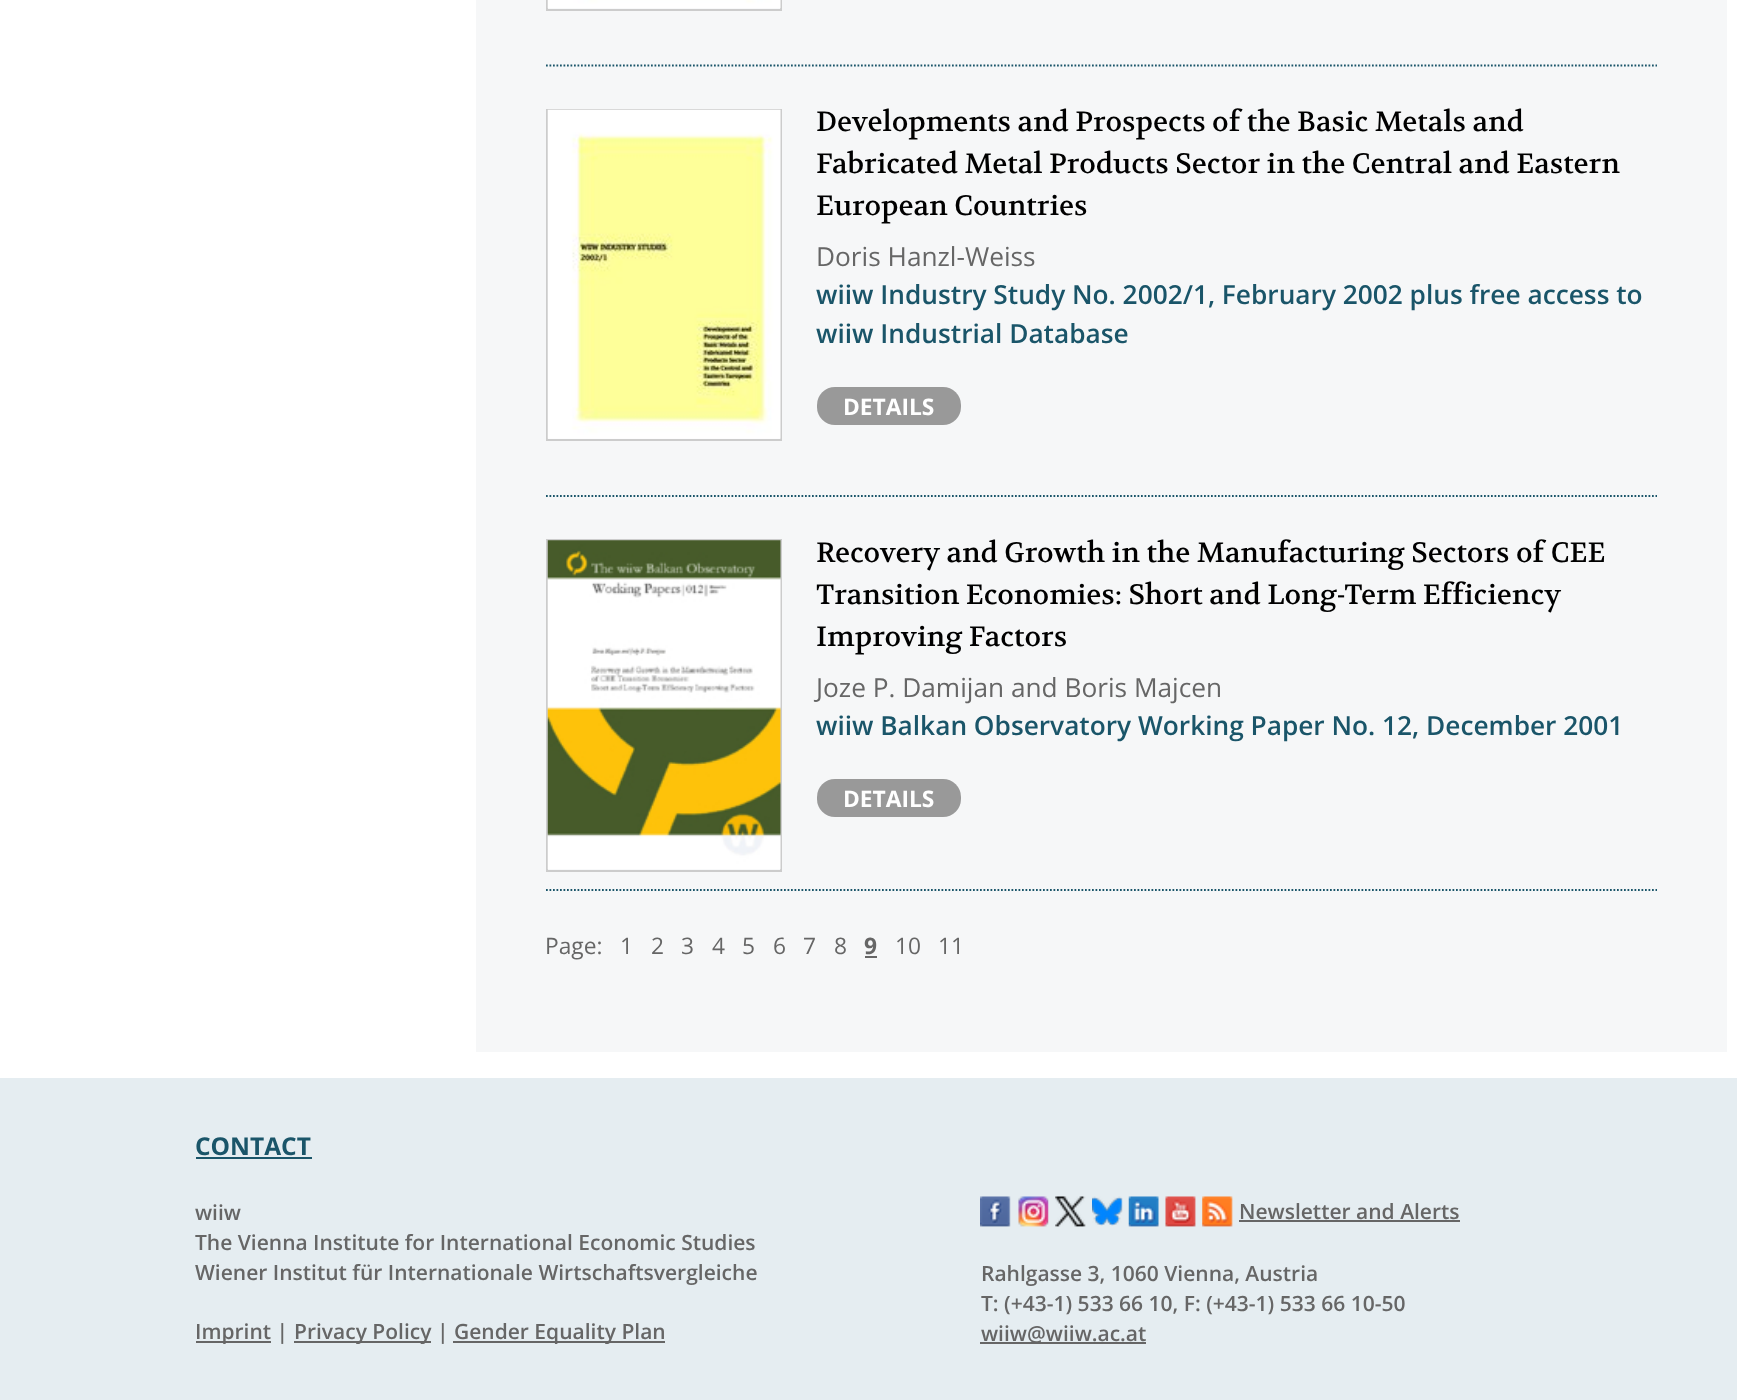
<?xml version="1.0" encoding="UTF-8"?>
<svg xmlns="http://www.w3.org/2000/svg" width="1737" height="1400">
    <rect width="100%" height="100%" fill="#FFFFFF"/>
    <rect x="476" y="0" width="1251" height="1052" fill="#F6F7F8"/>
    <path d="M 546 65.5 H 1657" fill="none" stroke="#1A5569" stroke-width="1.8" stroke-dasharray="1.75 1.75"/>
    <rect x="547" y="-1" width="234" height="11" fill="none" stroke="#CCCCCC" stroke-width="2"/>
    <image x="547" y="0" width="234" height="9" href="img_01.png"/>
    <path d="M 546 496 H 1657" fill="none" stroke="#1A5569" stroke-width="1.8" stroke-dasharray="1.75 1.75"/>
    <rect x="547" y="110" width="234" height="330" fill="none" stroke="#CCCCCC" stroke-width="2"/>
    <image x="547" y="109" width="234" height="330" href="img_02.png"/>
    <text font-family="Volkhov" font-size="28" fill="#000000">
        <tspan x="816" y="131">Developments and Prospects of the Basic Metals and</tspan>
        <tspan x="816" y="173">Fabricated Metal Products Sector in the Central and Eastern</tspan>
        <tspan x="816" y="215">European Countries</tspan>
    </text>
    <text x="816" y="266" font-family="Open Sans" font-size="26.25" fill="#666666">Doris Hanzl-Weiss</text>
    <text font-family="Open Sans" font-size="26.25" font-weight="600" fill="#1A5569">
        <tspan x="816" y="304">wiiw Industry Study No. 2002/1, February 2002 plus free access to</tspan>
        <tspan x="816" y="343">wiiw Industrial Database</tspan>
    </text>
    <rect x="817" y="387" width="144" height="38" rx="18" fill="#999999"/>
    <text x="843" y="415" font-family="Open Sans" font-size="22.75" font-weight="700" fill="#FFFFFF">DETAILS</text>
    <path d="M 546 890 H 1657" fill="none" stroke="#1A5569" stroke-width="1.8" stroke-dasharray="1.75 1.75"/>
    <rect x="547" y="540" width="234" height="331" fill="none" stroke="#CCCCCC" stroke-width="2"/>
    <image x="547" y="540" width="234" height="330" href="img_03.png"/>
    <text font-family="Volkhov" font-size="28" fill="#000000">
        <tspan x="816" y="562">Recovery and Growth in the Manufacturing Sectors of CEE</tspan>
        <tspan x="816" y="604">Transition Economies: Short and Long-Term Efficiency</tspan>
        <tspan x="816" y="646">Improving Factors</tspan>
    </text>
    <text x="816" y="697" font-family="Open Sans" font-size="26.25" fill="#666666">Joze P. Damijan and Boris Majcen</text>
    <text x="816" y="735" font-family="Open Sans" font-size="26.25" font-weight="600" fill="#1A5569">wiiw Balkan Observatory Working Paper No. 12, December 2001</text>
    <rect x="817" y="779" width="144" height="38" rx="18" fill="#999999"/>
    <text x="843" y="807" font-family="Open Sans" font-size="22.75" font-weight="700" fill="#FFFFFF">DETAILS</text>
    <text x="545" y="954" font-family="Open Sans" font-size="22.75" fill="#666666">Page:</text>
    <text x="620" y="954" font-family="Open Sans" font-size="22.75" fill="#666666">1</text>
    <text x="651" y="954" font-family="Open Sans" font-size="22.75" fill="#666666">2</text>
    <text x="681" y="954" font-family="Open Sans" font-size="22.75" fill="#666666">3</text>
    <text x="712" y="954" font-family="Open Sans" font-size="22.75" fill="#666666">4</text>
    <text x="742" y="954" font-family="Open Sans" font-size="22.75" fill="#666666">5</text>
    <text x="773" y="954" font-family="Open Sans" font-size="22.75" fill="#666666">6</text>
    <text x="803" y="954" font-family="Open Sans" font-size="22.75" fill="#666666">7</text>
    <text x="834" y="954" font-family="Open Sans" font-size="22.75" fill="#666666">8</text>
    <text x="864" y="954" font-family="Open Sans" font-size="22.75" font-weight="700" fill="#666666">9</text>
    <rect x="865" y="956" width="12" height="2" fill="#666666"/>
    <text x="895" y="954" font-family="Open Sans" font-size="22.75" fill="#666666">10</text>
    <text x="938" y="954" font-family="Open Sans" font-size="22.75" fill="#666666">11</text>
    <rect x="0" y="1078" width="1737" height="322" fill="#E5EDF1"/>
    <text x="195" y="1155" font-family="Open Sans" font-size="24.5" font-weight="700" fill="#1A5569">CONTACT</text>
    <rect x="196" y="1157" width="116" height="2" fill="#1A5569"/>
    <text font-family="Open Sans" font-size="21" font-weight="600" fill="#666666">
        <tspan x="195" y="1220">wiiw</tspan>
        <tspan x="195" y="1250">The Vienna Institute for International Economic Studies</tspan>
        <tspan x="195" y="1280">Wiener Institut für Internationale Wirtschaftsvergleiche</tspan>
    </text>
    <rect x="196" y="1341" width="75" height="2" fill="#666666"/>
    <text x="195" y="1339" font-family="Open Sans" font-size="21" font-weight="600" fill="#666666">Imprint |</text>
    <rect x="294" y="1341" width="137" height="2" fill="#666666"/>
    <text x="294" y="1339" font-family="Open Sans" font-size="21" font-weight="600" fill="#666666">Privacy Policy |</text>
    <rect x="453" y="1341" width="212" height="2" fill="#666666"/>
    <text x="454" y="1339" font-family="Open Sans" font-size="21" font-weight="600" fill="#666666">Gender Equality Plan</text>
    <image x="980" y="1196" width="31" height="31" href="img_04.png"/>
    <image x="1018" y="1196" width="31" height="31" href="img_05.png"/>
    <image x="1055" y="1196" width="31" height="31" href="img_06.png"/>
    <image x="1092" y="1196" width="31" height="30" href="img_07.png"/>
    <image x="1128" y="1196" width="31" height="31" href="img_08.png"/>
    <image x="1165" y="1196" width="31" height="31" href="img_09.png"/>
    <image x="1202" y="1196" width="31" height="31" href="img_10.png"/>
    <text x="1239" y="1219" font-family="Open Sans" font-size="21" font-weight="600" fill="#666666">Newsletter and Alerts</text>
    <rect x="1239" y="1220" width="221" height="2" fill="#666666"/>
    <text font-family="Open Sans" font-size="21" font-weight="600" fill="#666666">
        <tspan x="981" y="1281">Rahlgasse 3, 1060 Vienna, Austria</tspan>
        <tspan x="981" y="1311">T: (+43-1) 533 66 10, F: (+43-1) 533 66 10-50</tspan>
    </text>
    <rect x="980" y="1342" width="166" height="2" fill="#666666"/>
    <text x="981" y="1341" font-family="Open Sans" font-size="21" font-weight="600" fill="#666666">wiiw@wiiw.ac.at</text>
</svg>
